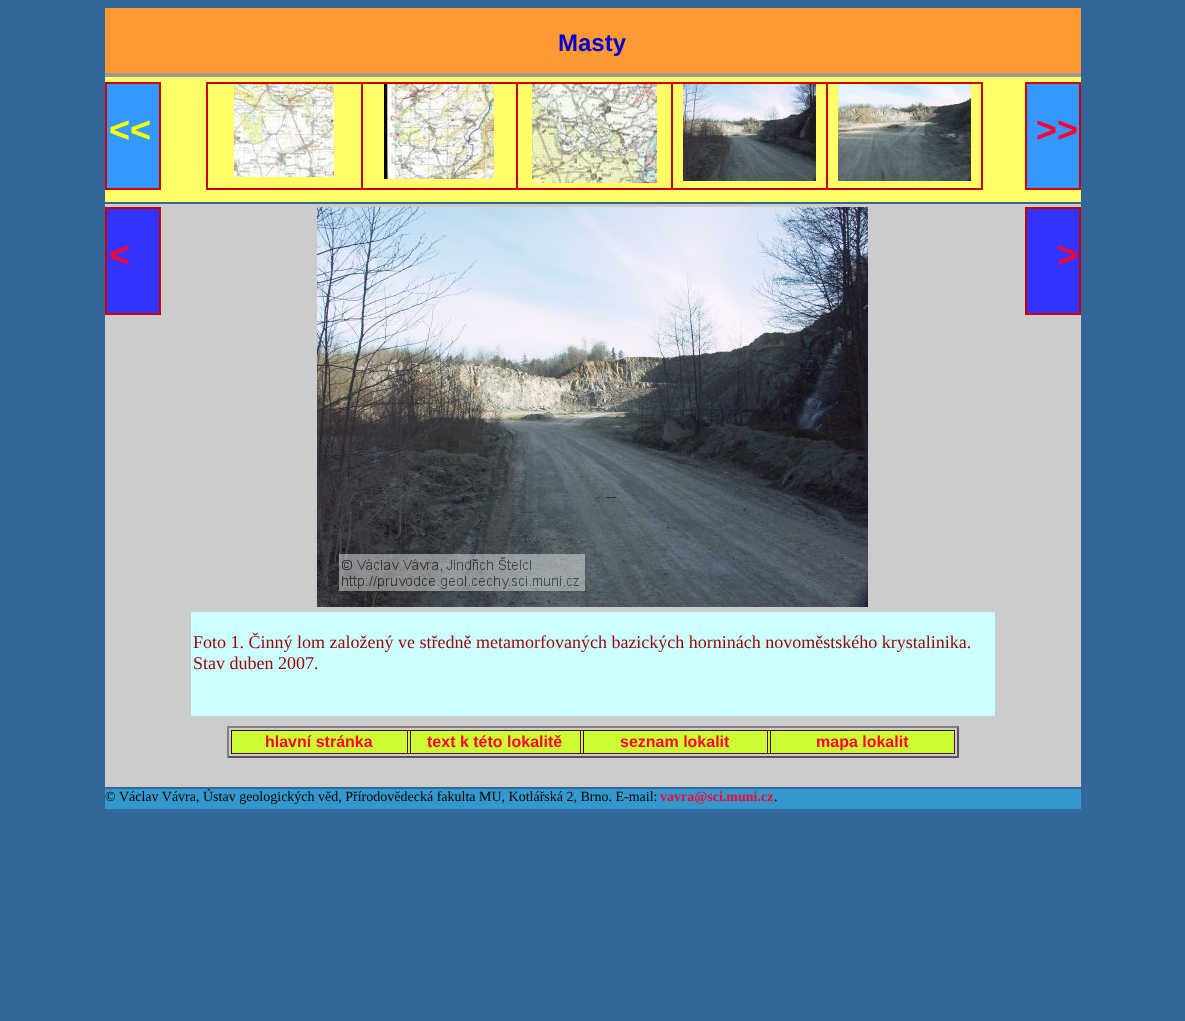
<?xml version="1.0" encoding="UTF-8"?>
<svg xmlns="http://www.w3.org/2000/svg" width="1185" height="1021">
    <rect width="100%" height="100%" fill="#336699"/>
    <rect x="105" y="8" width="976" height="65" fill="#FF9933"/>
    <rect x="105" y="73" width="976" height="4" fill="#999999"/>
    <text x="558" y="51" font-family="Liberation Sans" font-size="24" font-weight="700" fill="#0000CC">Masty</text>
    <rect x="105" y="77" width="976" height="125" fill="#FFFF66"/>
    <rect x="206" y="82" width="777" height="2" fill="#CC0000"/>
    <rect x="361" y="82" width="1" height="108" fill="#CC0000"/>
    <rect x="206" y="188" width="156" height="2" fill="#CC0000"/>
    <rect x="206" y="82" width="2" height="108" fill="#CC0000"/>
    <image x="234" y="84" width="100" height="93" href="img_01.png"/>
    <rect x="106" y="83" width="54" height="106" fill="#3399FF" stroke="#CC0000" stroke-width="2"/>
    <text x="109" y="142" font-family="Liberation Sans" font-size="36" font-weight="700" fill="#FFFF00">&lt;&lt;</text>
    <rect x="516" y="82" width="1" height="108" fill="#CC0000"/>
    <rect x="362" y="188" width="155" height="2" fill="#CC0000"/>
    <rect x="362" y="82" width="1" height="108" fill="#CC0000"/>
    <image x="384" y="84" width="110" height="95" href="img_02.png"/>
    <rect x="671" y="82" width="1" height="108" fill="#CC0000"/>
    <rect x="517" y="188" width="155" height="2" fill="#CC0000"/>
    <rect x="517" y="82" width="1" height="108" fill="#CC0000"/>
    <image x="532" y="84" width="125" height="99" href="img_03.png"/>
    <rect x="826" y="82" width="1" height="108" fill="#CC0000"/>
    <rect x="672" y="188" width="155" height="2" fill="#CC0000"/>
    <rect x="672" y="82" width="1" height="108" fill="#CC0000"/>
    <image x="683" y="84" width="133" height="97" href="img_04.png"/>
    <rect x="981" y="82" width="2" height="108" fill="#CC0000"/>
    <rect x="827" y="188" width="156" height="2" fill="#CC0000"/>
    <rect x="827" y="82" width="1" height="108" fill="#CC0000"/>
    <image x="838" y="84" width="133" height="97" href="img_05.png"/>
    <rect x="1026" y="83" width="54" height="106" fill="#3399FF" stroke="#CC0000" stroke-width="2"/>
    <text x="1036" y="142" font-family="Liberation Sans" font-size="36" font-weight="700" fill="#FF0033">&gt;&gt;</text>
    <rect x="105" y="204" width="976" height="583" fill="#CCCCCC"/>
    <rect x="106" y="208" width="54" height="106" fill="#3333FF" stroke="#CC0000" stroke-width="2"/>
    <text x="109" y="267" font-family="Liberation Sans" font-size="36" font-weight="700" fill="#FF0033">&lt;</text>
    <image x="317" y="207" width="551" height="400" href="img_06.png"/>
    <rect x="1026" y="208" width="54" height="106" fill="#3333FF" stroke="#CC0000" stroke-width="2"/>
    <text x="1057" y="267" font-family="Liberation Sans" font-size="36" font-weight="700" fill="#FF0033">&gt;</text>
    <rect x="191" y="612" width="804" height="104" fill="#CCFFFF"/>
    <text font-family="Liberation Serif" font-size="18" fill="#990000">
        <tspan x="193" y="648">Foto 1. Činný lom založený ve středně metamorfovaných bazických horninách novoměstského krystalinika.</tspan>
        <tspan x="193" y="669">Stav duben 2007.</tspan>
    </text>
    <path d="M 227 726 H 959 L 957 728 H 229 Z" fill="#808080"/>
    <path d="M 959 726 V 758 L 957 756 V 728 Z" fill="#555555"/>
    <path d="M 959 758 H 227 L 229 756 H 957 Z" fill="#555555"/>
    <path d="M 227 758 V 726 L 229 728 V 756 Z" fill="#808080"/>
    <rect x="231.5" y="730.5" width="723" height="23" fill="#CCFF33" stroke="#660033"/>
    <rect x="231" y="730" width="177" height="1" fill="#440022"/>
    <rect x="407" y="730" width="1" height="24" fill="#660033"/>
    <rect x="231" y="730" width="1" height="24" fill="#440022"/>
    <text x="265" y="747" font-family="Liberation Sans" font-size="16" font-weight="700" fill="#FF0033">hlavní stránka</text>
    <rect x="410" y="730" width="171" height="1" fill="#440022"/>
    <rect x="580" y="730" width="1" height="24" fill="#660033"/>
    <rect x="410" y="730" width="1" height="24" fill="#440022"/>
    <text x="427" y="747" font-family="Liberation Sans" font-size="16" font-weight="700" fill="#FF0033">text k této lokalitě</text>
    <rect x="583" y="730" width="185" height="1" fill="#440022"/>
    <rect x="767" y="730" width="1" height="24" fill="#660033"/>
    <rect x="583" y="730" width="1" height="24" fill="#440022"/>
    <text x="620" y="747" font-family="Liberation Sans" font-size="16" font-weight="700" fill="#FF0033">seznam lokalit</text>
    <rect x="770" y="730" width="185" height="1" fill="#440022"/>
    <rect x="954" y="730" width="1" height="1" fill="#660033"/>
    <rect x="770" y="730" width="1" height="24" fill="#440022"/>
    <text x="816" y="747" font-family="Liberation Sans" font-size="16" font-weight="700" fill="#FF0033">mapa lokalit</text>
    <rect x="105" y="789" width="976" height="20" fill="#3399CC"/>
    <text x="105" y="801" font-family="Liberation Serif" font-size="14" fill="#000000">© Václav Vávra, Ústav geologických věd, Přírodovědecká fakulta MU, Kotlářská 2, Brno. E-mail:</text>
    <text x="660" y="801" font-family="Liberation Serif" font-size="14" font-weight="700" fill="#FF0033">vavra@sci.muni.cz</text>
    <text x="774" y="801" font-family="Liberation Serif" font-size="14" fill="#000000">.</text>
</svg>
